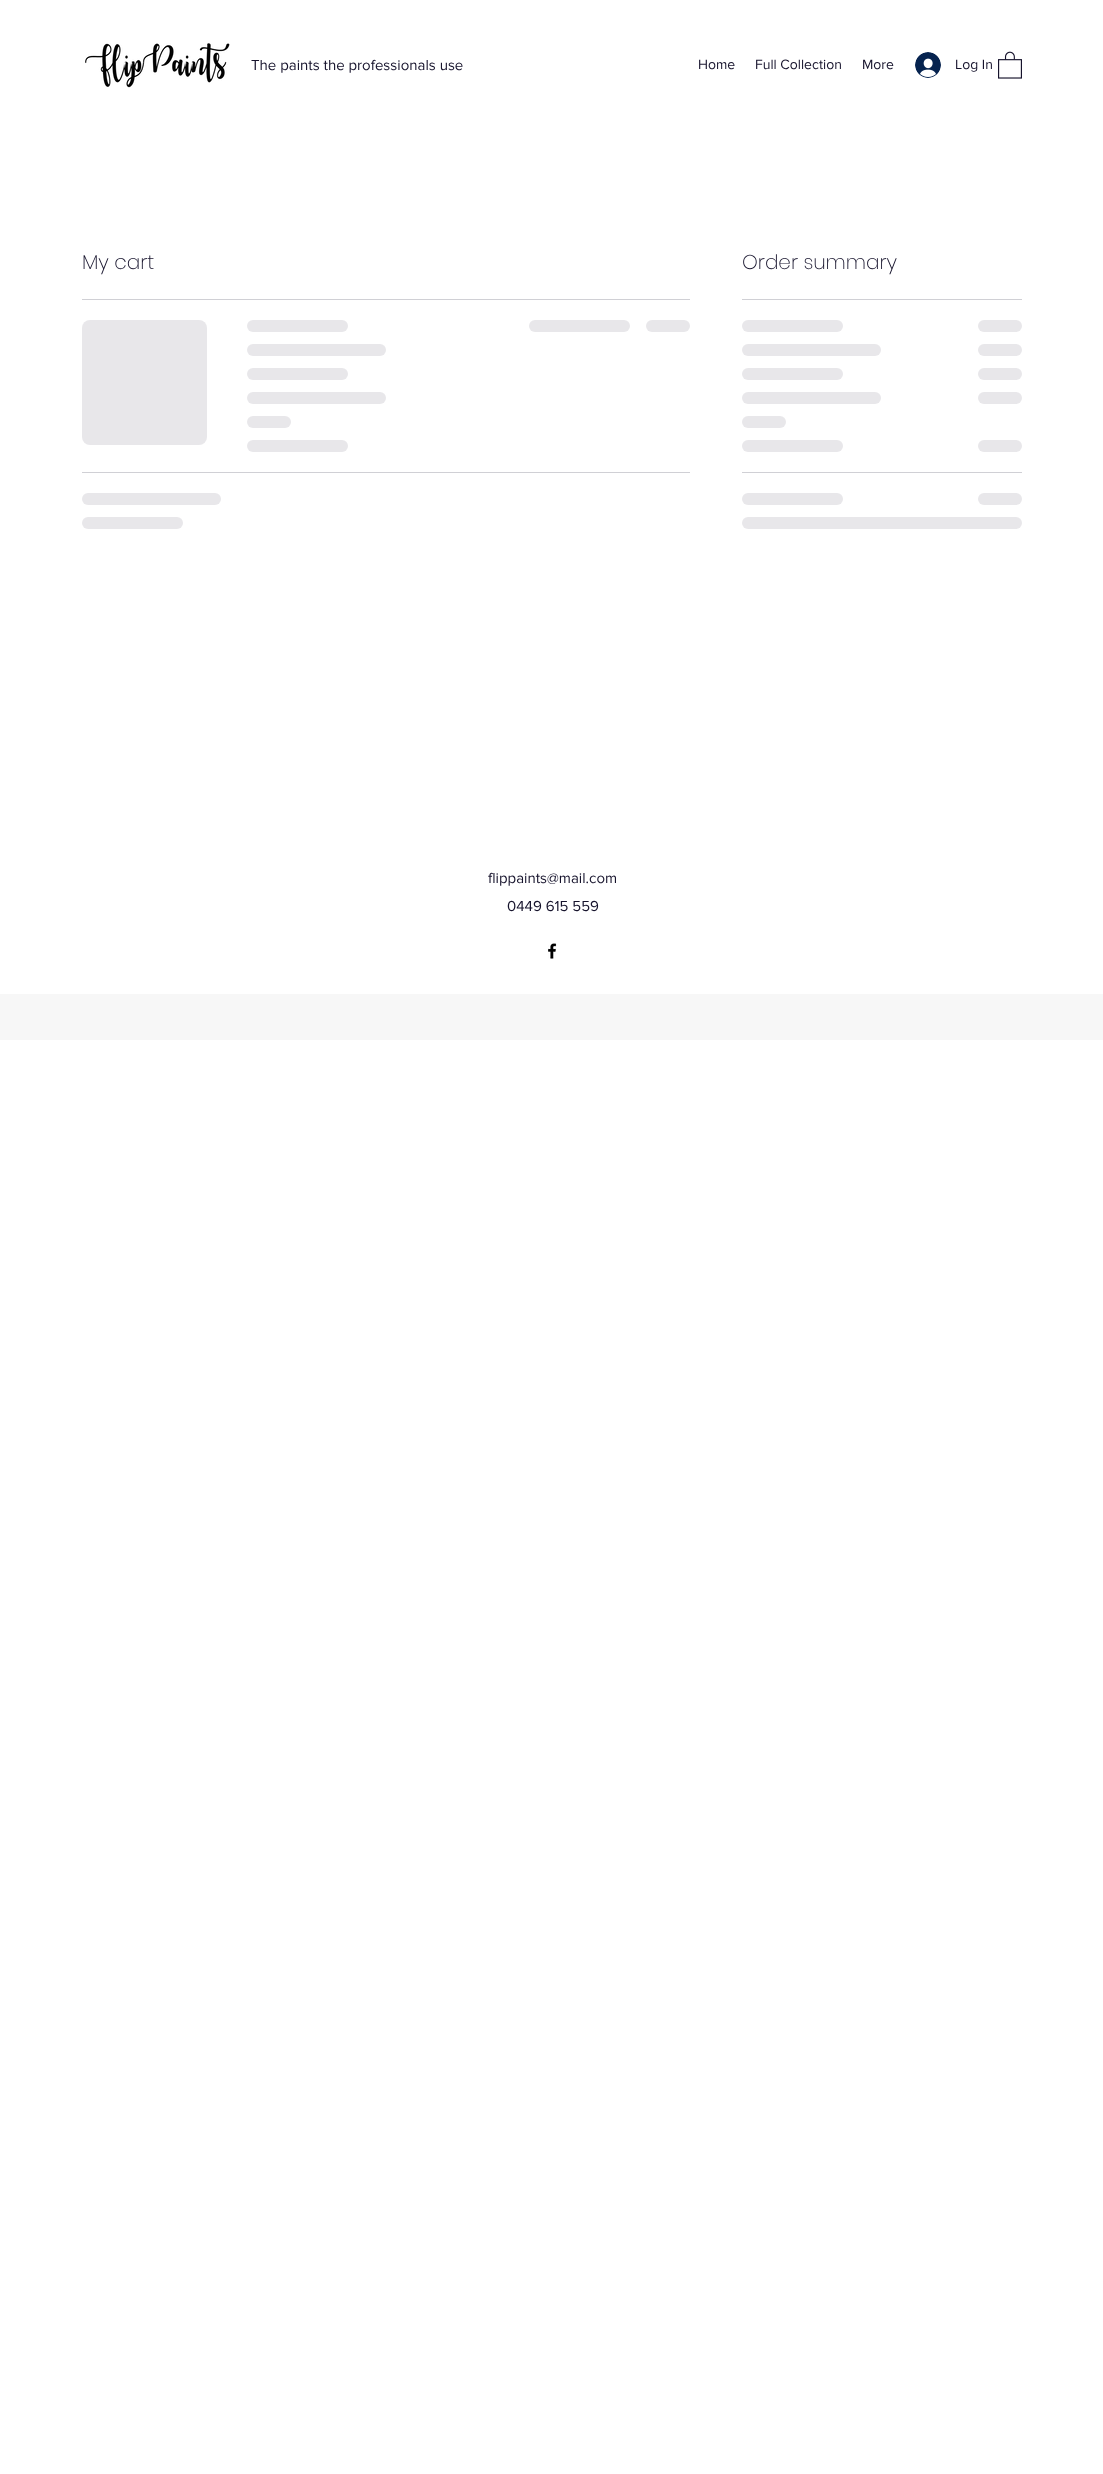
<?xml version="1.0" encoding="UTF-8"?>
<svg xmlns="http://www.w3.org/2000/svg" width="1103" height="2474">
    <defs>
        <linearGradient id="g1" gradientUnits="userSpaceOnUse" x1="82" y1="383" x2="582" y2="383"><stop offset="0.25" stop-color="#E8E7EA"/><stop offset="0.37" stop-color="#D0D0D5"/><stop offset="0.63" stop-color="#E8E7EA"/></linearGradient>
        <linearGradient id="g2" gradientUnits="userSpaceOnUse" x1="247" y1="326" x2="651" y2="326"><stop offset="0.25" stop-color="#E8E7EA"/><stop offset="0.37" stop-color="#D0D0D5"/><stop offset="0.63" stop-color="#E8E7EA"/></linearGradient>
        <linearGradient id="g3" gradientUnits="userSpaceOnUse" x1="247" y1="350" x2="803" y2="350"><stop offset="0.25" stop-color="#E8E7EA"/><stop offset="0.37" stop-color="#D0D0D5"/><stop offset="0.63" stop-color="#E8E7EA"/></linearGradient>
        <linearGradient id="g4" gradientUnits="userSpaceOnUse" x1="247" y1="374" x2="651" y2="374"><stop offset="0.25" stop-color="#E8E7EA"/><stop offset="0.37" stop-color="#D0D0D5"/><stop offset="0.63" stop-color="#E8E7EA"/></linearGradient>
        <linearGradient id="g5" gradientUnits="userSpaceOnUse" x1="247" y1="398" x2="803" y2="398"><stop offset="0.25" stop-color="#E8E7EA"/><stop offset="0.37" stop-color="#D0D0D5"/><stop offset="0.63" stop-color="#E8E7EA"/></linearGradient>
        <linearGradient id="g6" gradientUnits="userSpaceOnUse" x1="247" y1="422" x2="423" y2="422"><stop offset="0.25" stop-color="#E8E7EA"/><stop offset="0.37" stop-color="#D0D0D5"/><stop offset="0.63" stop-color="#E8E7EA"/></linearGradient>
        <linearGradient id="g7" gradientUnits="userSpaceOnUse" x1="247" y1="446" x2="651" y2="446"><stop offset="0.25" stop-color="#E8E7EA"/><stop offset="0.37" stop-color="#D0D0D5"/><stop offset="0.63" stop-color="#E8E7EA"/></linearGradient>
        <linearGradient id="g8" gradientUnits="userSpaceOnUse" x1="529" y1="326" x2="933" y2="326"><stop offset="0.25" stop-color="#E8E7EA"/><stop offset="0.37" stop-color="#D0D0D5"/><stop offset="0.63" stop-color="#E8E7EA"/></linearGradient>
        <linearGradient id="g9" gradientUnits="userSpaceOnUse" x1="646" y1="326" x2="822" y2="326"><stop offset="0.25" stop-color="#E8E7EA"/><stop offset="0.37" stop-color="#D0D0D5"/><stop offset="0.63" stop-color="#E8E7EA"/></linearGradient>
        <linearGradient id="g10" gradientUnits="userSpaceOnUse" x1="82" y1="499" x2="638" y2="499"><stop offset="0.25" stop-color="#E8E7EA"/><stop offset="0.37" stop-color="#D0D0D5"/><stop offset="0.63" stop-color="#E8E7EA"/></linearGradient>
        <linearGradient id="g11" gradientUnits="userSpaceOnUse" x1="82" y1="523" x2="486" y2="523"><stop offset="0.25" stop-color="#E8E7EA"/><stop offset="0.37" stop-color="#D0D0D5"/><stop offset="0.63" stop-color="#E8E7EA"/></linearGradient>
        <linearGradient id="g12" gradientUnits="userSpaceOnUse" x1="742" y1="326" x2="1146" y2="326"><stop offset="0.25" stop-color="#E8E7EA"/><stop offset="0.37" stop-color="#D0D0D5"/><stop offset="0.63" stop-color="#E8E7EA"/></linearGradient>
        <linearGradient id="g13" gradientUnits="userSpaceOnUse" x1="978" y1="326" x2="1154" y2="326"><stop offset="0.25" stop-color="#E8E7EA"/><stop offset="0.37" stop-color="#D0D0D5"/><stop offset="0.63" stop-color="#E8E7EA"/></linearGradient>
        <linearGradient id="g14" gradientUnits="userSpaceOnUse" x1="742" y1="350" x2="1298" y2="350"><stop offset="0.25" stop-color="#E8E7EA"/><stop offset="0.37" stop-color="#D0D0D5"/><stop offset="0.63" stop-color="#E8E7EA"/></linearGradient>
        <linearGradient id="g15" gradientUnits="userSpaceOnUse" x1="978" y1="350" x2="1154" y2="350"><stop offset="0.25" stop-color="#E8E7EA"/><stop offset="0.37" stop-color="#D0D0D5"/><stop offset="0.63" stop-color="#E8E7EA"/></linearGradient>
        <linearGradient id="g16" gradientUnits="userSpaceOnUse" x1="742" y1="374" x2="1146" y2="374"><stop offset="0.25" stop-color="#E8E7EA"/><stop offset="0.37" stop-color="#D0D0D5"/><stop offset="0.63" stop-color="#E8E7EA"/></linearGradient>
        <linearGradient id="g17" gradientUnits="userSpaceOnUse" x1="978" y1="374" x2="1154" y2="374"><stop offset="0.25" stop-color="#E8E7EA"/><stop offset="0.37" stop-color="#D0D0D5"/><stop offset="0.63" stop-color="#E8E7EA"/></linearGradient>
        <linearGradient id="g18" gradientUnits="userSpaceOnUse" x1="742" y1="398" x2="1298" y2="398"><stop offset="0.25" stop-color="#E8E7EA"/><stop offset="0.37" stop-color="#D0D0D5"/><stop offset="0.63" stop-color="#E8E7EA"/></linearGradient>
        <linearGradient id="g19" gradientUnits="userSpaceOnUse" x1="978" y1="398" x2="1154" y2="398"><stop offset="0.25" stop-color="#E8E7EA"/><stop offset="0.37" stop-color="#D0D0D5"/><stop offset="0.63" stop-color="#E8E7EA"/></linearGradient>
        <linearGradient id="g20" gradientUnits="userSpaceOnUse" x1="742" y1="422" x2="918" y2="422"><stop offset="0.25" stop-color="#E8E7EA"/><stop offset="0.37" stop-color="#D0D0D5"/><stop offset="0.63" stop-color="#E8E7EA"/></linearGradient>
        <linearGradient id="g21" gradientUnits="userSpaceOnUse" x1="742" y1="446" x2="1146" y2="446"><stop offset="0.25" stop-color="#E8E7EA"/><stop offset="0.37" stop-color="#D0D0D5"/><stop offset="0.63" stop-color="#E8E7EA"/></linearGradient>
        <linearGradient id="g22" gradientUnits="userSpaceOnUse" x1="978" y1="446" x2="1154" y2="446"><stop offset="0.25" stop-color="#E8E7EA"/><stop offset="0.37" stop-color="#D0D0D5"/><stop offset="0.63" stop-color="#E8E7EA"/></linearGradient>
        <linearGradient id="g23" gradientUnits="userSpaceOnUse" x1="742" y1="499" x2="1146" y2="499"><stop offset="0.25" stop-color="#E8E7EA"/><stop offset="0.37" stop-color="#D0D0D5"/><stop offset="0.63" stop-color="#E8E7EA"/></linearGradient>
        <linearGradient id="g24" gradientUnits="userSpaceOnUse" x1="978" y1="499" x2="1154" y2="499"><stop offset="0.25" stop-color="#E8E7EA"/><stop offset="0.37" stop-color="#D0D0D5"/><stop offset="0.63" stop-color="#E8E7EA"/></linearGradient>
        <linearGradient id="g25" gradientUnits="userSpaceOnUse" x1="742" y1="523" x2="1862" y2="523"><stop offset="0.25" stop-color="#E8E7EA"/><stop offset="0.37" stop-color="#D0D0D5"/><stop offset="0.63" stop-color="#E8E7EA"/></linearGradient>
    </defs>
    <rect width="100%" height="100%" fill="#FFFFFF"/>
    <image x="85" y="43" width="145" height="45" href="img_01.png"/>
    <text x="251" y="70" font-family="'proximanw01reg'" font-size="15" fill="#16132C">The paints the professionals use</text>
    <text x="698" y="69" font-family="'proximanw01reg'" font-size="14" fill="#16132C">Home</text>
    <text x="755" y="69" font-family="'proximanw01reg'" font-size="14" fill="#16132C">Full Collection</text>
    <text x="862" y="69" font-family="'proximanw01reg'" font-size="14" fill="#16132C">More</text>
    <image x="915" y="52" width="26" height="26" href="img_02.png"/>
    <text x="955" y="69" font-family="'proximanw01reg'" font-size="14" fill="#16132C">Log In</text>
    <image x="998" y="51" width="24" height="28" href="img_03.png"/>
    <rect x="82" y="299" width="608" height="1" fill="#D0D0D5"/>
    <text x="82" y="269" font-family="Poppins" font-size="20" font-weight="200" fill="#16132C">My cart</text>
    <rect x="82" y="320" width="125" height="125" rx="8" fill="url(#g1)"/>
    <rect x="247" y="320" width="101" height="12" rx="6" fill="url(#g2)"/>
    <rect x="247" y="344" width="139" height="12" rx="6" fill="url(#g3)"/>
    <rect x="247" y="368" width="101" height="12" rx="6" fill="url(#g4)"/>
    <rect x="247" y="392" width="139" height="12" rx="6" fill="url(#g5)"/>
    <rect x="247" y="416" width="44" height="12" rx="6" fill="url(#g6)"/>
    <rect x="247" y="440" width="101" height="12" rx="6" fill="url(#g7)"/>
    <rect x="529" y="320" width="101" height="12" rx="6" fill="url(#g8)"/>
    <rect x="646" y="320" width="44" height="12" rx="6" fill="url(#g9)"/>
    <rect x="82" y="472" width="608" height="1" fill="#D0D0D5"/>
    <rect x="82" y="493" width="139" height="12" rx="6" fill="url(#g10)"/>
    <rect x="82" y="517" width="101" height="12" rx="6" fill="url(#g11)"/>
    <rect x="742" y="299" width="280" height="1" fill="#D0D0D5"/>
    <text x="742" y="269" font-family="Poppins" font-size="20" font-weight="200" fill="#16132C">Order summary</text>
    <rect x="742" y="320" width="101" height="12" rx="6" fill="url(#g12)"/>
    <rect x="978" y="320" width="44" height="12" rx="6" fill="url(#g13)"/>
    <rect x="742" y="344" width="139" height="12" rx="6" fill="url(#g14)"/>
    <rect x="978" y="344" width="44" height="12" rx="6" fill="url(#g15)"/>
    <rect x="742" y="368" width="101" height="12" rx="6" fill="url(#g16)"/>
    <rect x="978" y="368" width="44" height="12" rx="6" fill="url(#g17)"/>
    <rect x="742" y="392" width="139" height="12" rx="6" fill="url(#g18)"/>
    <rect x="978" y="392" width="44" height="12" rx="6" fill="url(#g19)"/>
    <rect x="742" y="416" width="44" height="12" rx="6" fill="url(#g20)"/>
    <rect x="742" y="440" width="101" height="12" rx="6" fill="url(#g21)"/>
    <rect x="978" y="440" width="44" height="12" rx="6" fill="url(#g22)"/>
    <rect x="742" y="472" width="280" height="1" fill="#D0D0D5"/>
    <rect x="742" y="493" width="101" height="12" rx="6" fill="url(#g23)"/>
    <rect x="978" y="493" width="44" height="12" rx="6" fill="url(#g24)"/>
    <rect x="742" y="517" width="280" height="12" rx="6" fill="url(#g25)"/>
    <text x="488" y="883" font-family="'proximanw01reg'" font-size="15" fill="#16132C">flippaints@mail.com</text>
    <text x="507" y="911" font-family="'proximanw01reg'" font-size="15" fill="#16132C">0449 615 559</text>
    <image x="548" y="943" width="9" height="16" href="img_04.png"/>
    <rect x="0" y="994" width="1103" height="46" fill="#F7F7F7"/>
</svg>
